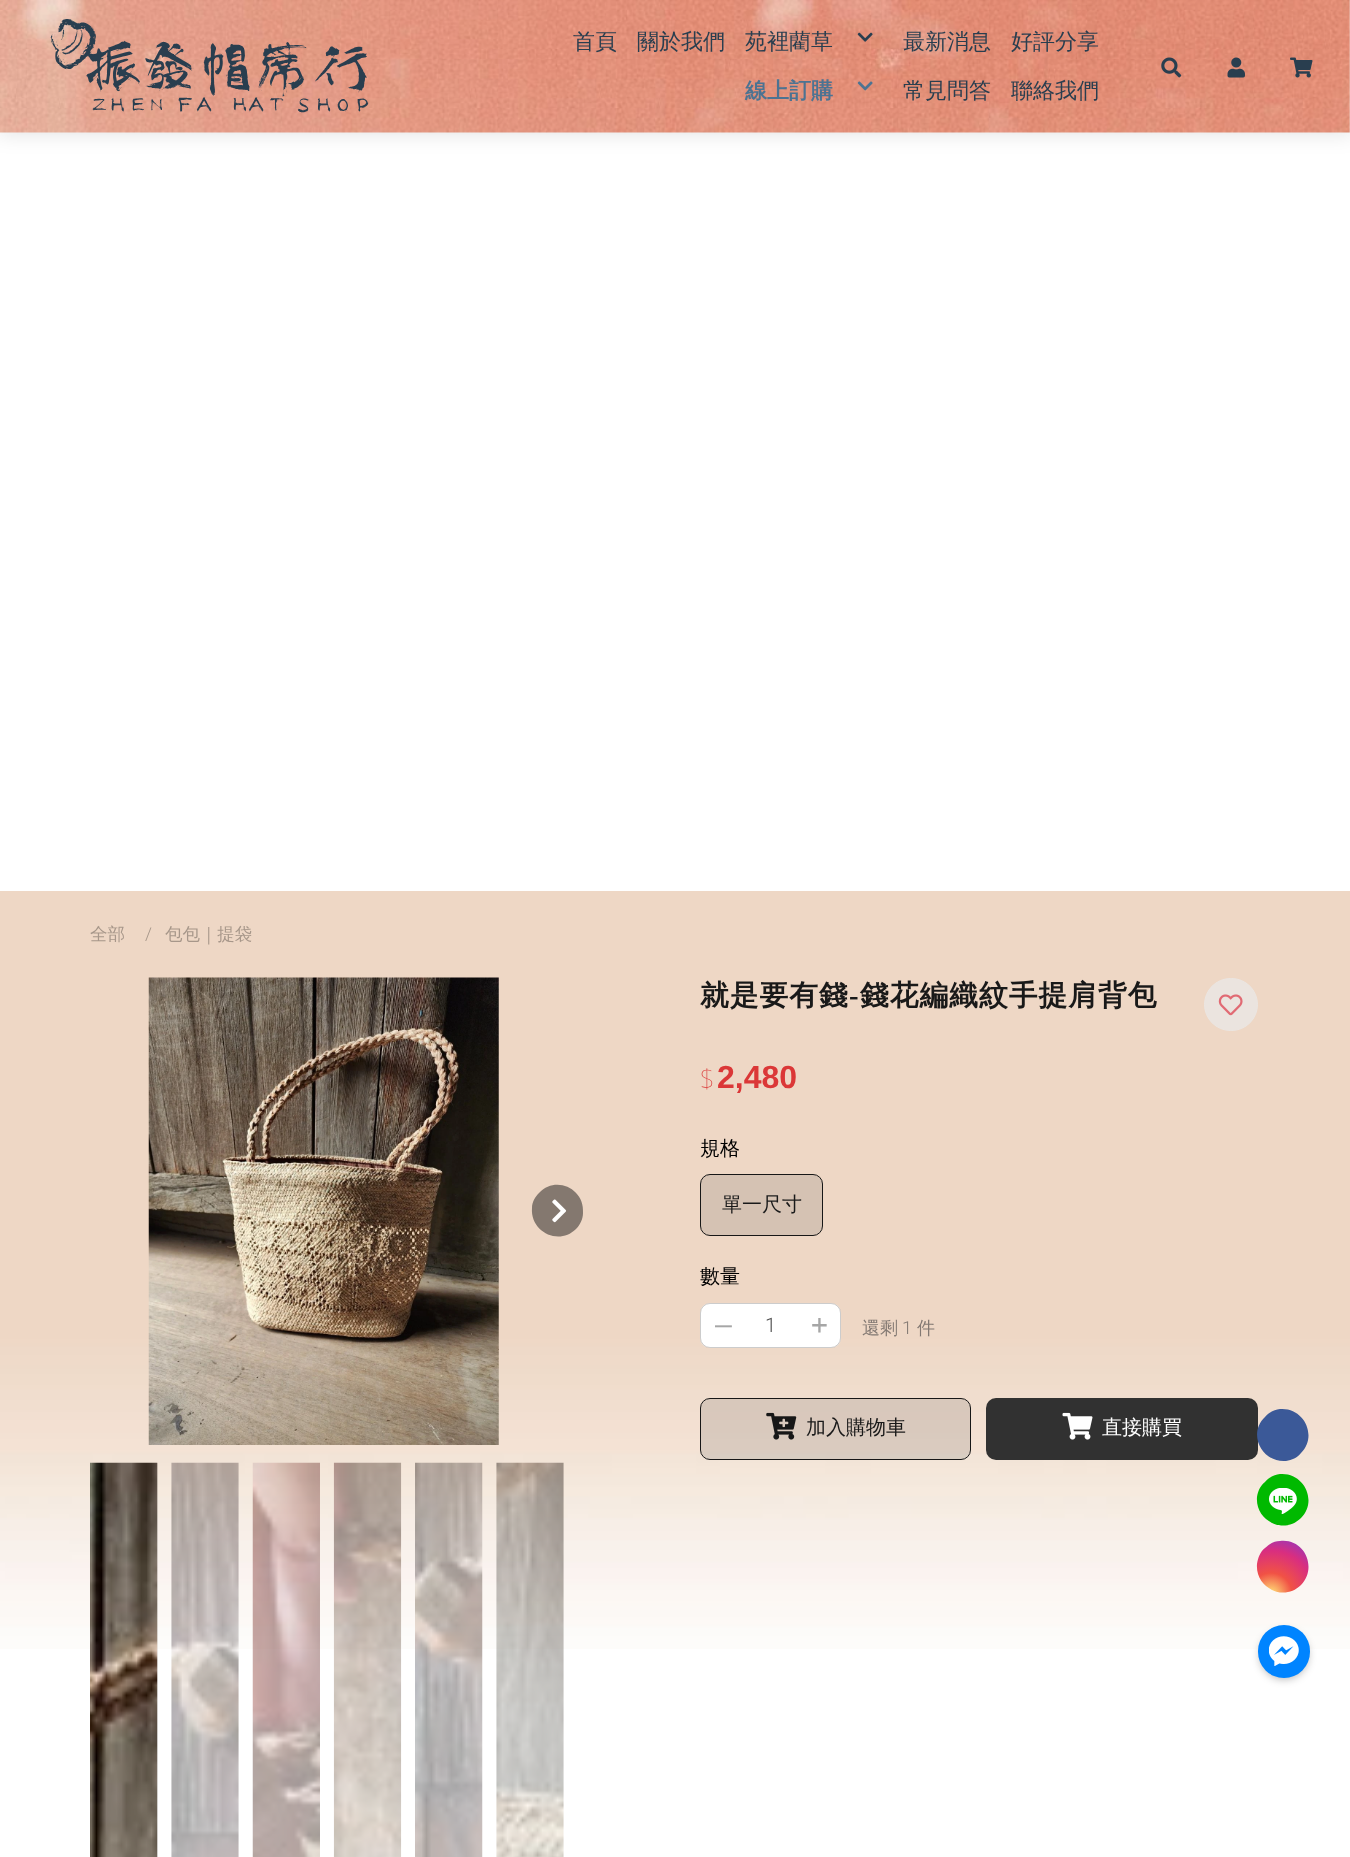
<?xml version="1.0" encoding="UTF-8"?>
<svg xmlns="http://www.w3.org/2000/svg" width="1350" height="1857">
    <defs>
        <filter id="blur1" x="-50%" y="-200%" width="200%" height="500%"><feGaussianBlur stdDeviation="10"/></filter>
        <radialGradient id="g1" gradientUnits="userSpaceOnUse" cx="1271" cy="1594" r="70"><stop offset="0.04" stop-color="#FED373"/><stop offset="0.3" stop-color="#F15245"/><stop offset="0.62" stop-color="#D92E7F"/><stop offset="0.85" stop-color="#9B36B7"/><stop offset="1" stop-color="#515ECF"/></radialGradient>
        <filter id="blur2" x="-50%" y="-200%" width="200%" height="500%"><feGaussianBlur stdDeviation="4.5"/></filter>
    </defs>
    <rect width="100%" height="100%" fill="#FFFFFF"/>
    <rect x="-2" y="-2" width="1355" height="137" fill="#000000" fill-opacity="0.1" filter="url(#blur1)"/>
    <image x="0" y="0" width="1350" height="133" href="img_01.png"/>
    <image x="50" y="19" width="319" height="94" href="img_02.png"/>
    <text x="573" y="49" font-family="WenQuanYi Zen Hei" font-size="22" font-weight="500" fill="#293E4F">首頁</text>
    <text x="637" y="49" font-family="WenQuanYi Zen Hei" font-size="22" font-weight="500" fill="#293E4F">關於我們</text>
    <text x="745" y="49" font-family="WenQuanYi Zen Hei" font-size="22" font-weight="500" fill="#293E4F">苑裡藺草</text>
    <image x="857" y="32" width="16" height="10" href="img_03.png"/>
    <text x="903" y="49" font-family="WenQuanYi Zen Hei" font-size="22" font-weight="500" fill="#293E4F">最新消息</text>
    <text x="1011" y="49" font-family="WenQuanYi Zen Hei" font-size="22" font-weight="500" fill="#293E4F">好評分享</text>
    <text x="745" y="98" font-family="WenQuanYi Zen Hei" font-size="22" font-weight="700" fill="#4C7392">線上訂購</text>
    <image x="857" y="81" width="16" height="10" href="img_04.png"/>
    <text x="903" y="98" font-family="WenQuanYi Zen Hei" font-size="22" font-weight="500" fill="#293E4F">常見問答</text>
    <text x="1011" y="98" font-family="WenQuanYi Zen Hei" font-size="22" font-weight="500" fill="#293E4F">聯絡我們</text>
    <image x="1161" y="57" width="21" height="21" href="img_05.png"/>
    <image x="1227" y="57" width="18" height="21" href="img_06.png"/>
    <image x="1290" y="57" width="23" height="21" href="img_07.png"/>
    <image x="0" y="891" width="1350" height="758" href="img_08.png"/>
    <text x="90" y="940" font-family="WenQuanYi Zen Hei" font-size="17.5" font-weight="500" fill="#A7978A">全部</text>
    <text x="145" y="940" font-family="Roboto" font-size="17.5" font-weight="300" fill="#A7978A">/</text>
    <text x="165" y="940" font-family="WenQuanYi Zen Hei" font-size="17.5" font-weight="500" fill="#A7978A">包包｜提袋</text>
    <image x="148" y="977" width="351" height="468" href="img_09.png"/>
    <path d="M 539 1193 C 556 1175 585 1189 583 1213 C 583 1219 580 1225 576 1229 C 559 1246 530 1232 532 1208 C 532 1202 535 1197 539 1193 Z" fill="#84786F"/>
    <image x="552" y="1199" width="15" height="24" href="img_10.png"/>
    <rect x="157" y="1463" width="1" height="394" fill="#000000" fill-opacity="0.05"/>
    <image x="90" y="1462" width="68" height="395" href="img_11.png"/>
    <image x="171" y="1462" width="68" height="395" href="img_12.png"/>
    <image x="252" y="1462" width="68" height="395" href="img_13.png"/>
    <image x="333" y="1462" width="69" height="395" href="img_14.png"/>
    <image x="415" y="1462" width="68" height="395" href="img_15.png"/>
    <image x="496" y="1462" width="68" height="395" href="img_16.png"/>
    <text x="700" y="1005" font-family="WenQuanYi Zen Hei" font-size="28.75" font-weight="700" letter-spacing="1" fill="#191919">就是要有錢</text>
    <text x="849" y="1005" font-family="Liberation Serif" font-size="28.75" font-weight="700" letter-spacing="1" fill="#191919">-</text>
    <text x="860" y="1005" font-family="WenQuanYi Zen Hei" font-size="28.75" font-weight="700" letter-spacing="1" fill="#191919">錢花編織紋手提肩背包</text>
    <rect x="1204.5" y="978.5" width="53" height="52" rx="26" fill="#EBE4DF" stroke="#EBE6E2"/>
    <image x="1218" y="994" width="25" height="22" href="img_17.png"/>
    <text x="700" y="1088" font-family="Noto Sans" font-size="26" font-weight="100" fill="#DB3737">$</text>
    <text x="717" y="1088" font-family="Liberation Sans" font-size="32" font-weight="700" fill="#DB3737">2,480</text>
    <text x="700" y="1155" font-family="WenQuanYi Zen Hei" font-size="20" font-weight="500" fill="#000000">規格</text>
    <rect x="700.5" y="1174.5" width="122" height="61" rx="9.5" fill="#D5C2B3" stroke="#171717"/>
    <text x="722" y="1211" font-family="WenQuanYi Zen Hei" font-size="20" font-weight="500" fill="#191919">單一尺寸</text>
    <text x="700" y="1283" font-family="WenQuanYi Zen Hei" font-size="20" font-weight="500" fill="#000000">數量</text>
    <rect x="700" y="1303" width="141" height="45" rx="10" fill="#FFFFFF"/>
    <rect x="700.5" y="1303.5" width="140" height="44" rx="9.5" fill="none" stroke="#000000" stroke-opacity="0.2"/>
    <text x="715" y="1334" font-family="DejaVu Sans Mono" font-size="28" fill="#A6A6A6">–</text>
    <text x="765" y="1332" font-family="Roboto" font-size="20" font-weight="300" fill="#525252">1</text>
    <text x="811" y="1334" font-family="DejaVu Sans Mono" font-size="28" fill="#A6A6A6">+</text>
    <text x="862" y="1334" font-family="WenQuanYi Zen Hei" font-size="18" font-weight="500" fill="#837973">還剩</text>
    <text x="902" y="1334" font-family="Roboto" font-size="18" font-weight="300" fill="#837973">1</text>
    <text x="917" y="1334" font-family="WenQuanYi Zen Hei" font-size="18" font-weight="500" fill="#837973">件</text>
    <rect x="700.5" y="1398.5" width="270" height="61" rx="9.5" fill="#4A4A4A" fill-opacity="0.15" stroke="#171717"/>
    <image x="766" y="1412" width="31" height="28" href="img_18.png"/>
    <text x="806" y="1434" font-family="WenQuanYi Zen Hei" font-size="20" font-weight="500" fill="#191919">加入購物車</text>
    <rect x="986" y="1398" width="272" height="62" rx="10" fill="#313131"/>
    <image x="1062" y="1412" width="31" height="28" href="img_19.png"/>
    <text x="1102" y="1434" font-family="WenQuanYi Zen Hei" font-size="20" font-weight="500" fill="#FFFFFF">直接購買</text>
    <path d="M 1265 1417 C 1269 1412 1274 1410 1280 1409 C 1304 1407 1318 1436 1301 1453 C 1297 1458 1292 1460 1286 1461 C 1262 1463 1247 1434 1265 1417 Z" fill="#3B5998"/>
    <path d="M 1265 1482 C 1269 1477 1274 1475 1280 1474 C 1304 1472 1318 1501 1301 1518 C 1284 1535 1255 1521 1257 1497 C 1258 1491 1260 1486 1265 1482 Z" fill="#00B900"/>
    <image x="1269" y="1488" width="28" height="26" href="img_20.png"/>
    <path d="M 1265 1548 C 1269 1544 1274 1541 1280 1541 C 1304 1538 1318 1567 1301 1585 C 1284 1602 1255 1588 1257 1564 C 1258 1558 1260 1552 1265 1548 Z" fill="url(#g1)"/>
    <rect x="1260" y="1631" width="48" height="48" rx="24" fill="#000000" fill-opacity="0.3" filter="url(#blur2)"/>
    <rect x="1258" y="1625" width="52" height="53" rx="26" fill="#0084FF"/>
    <image x="1269" y="1636" width="30" height="30" href="img_21.png"/>
</svg>
